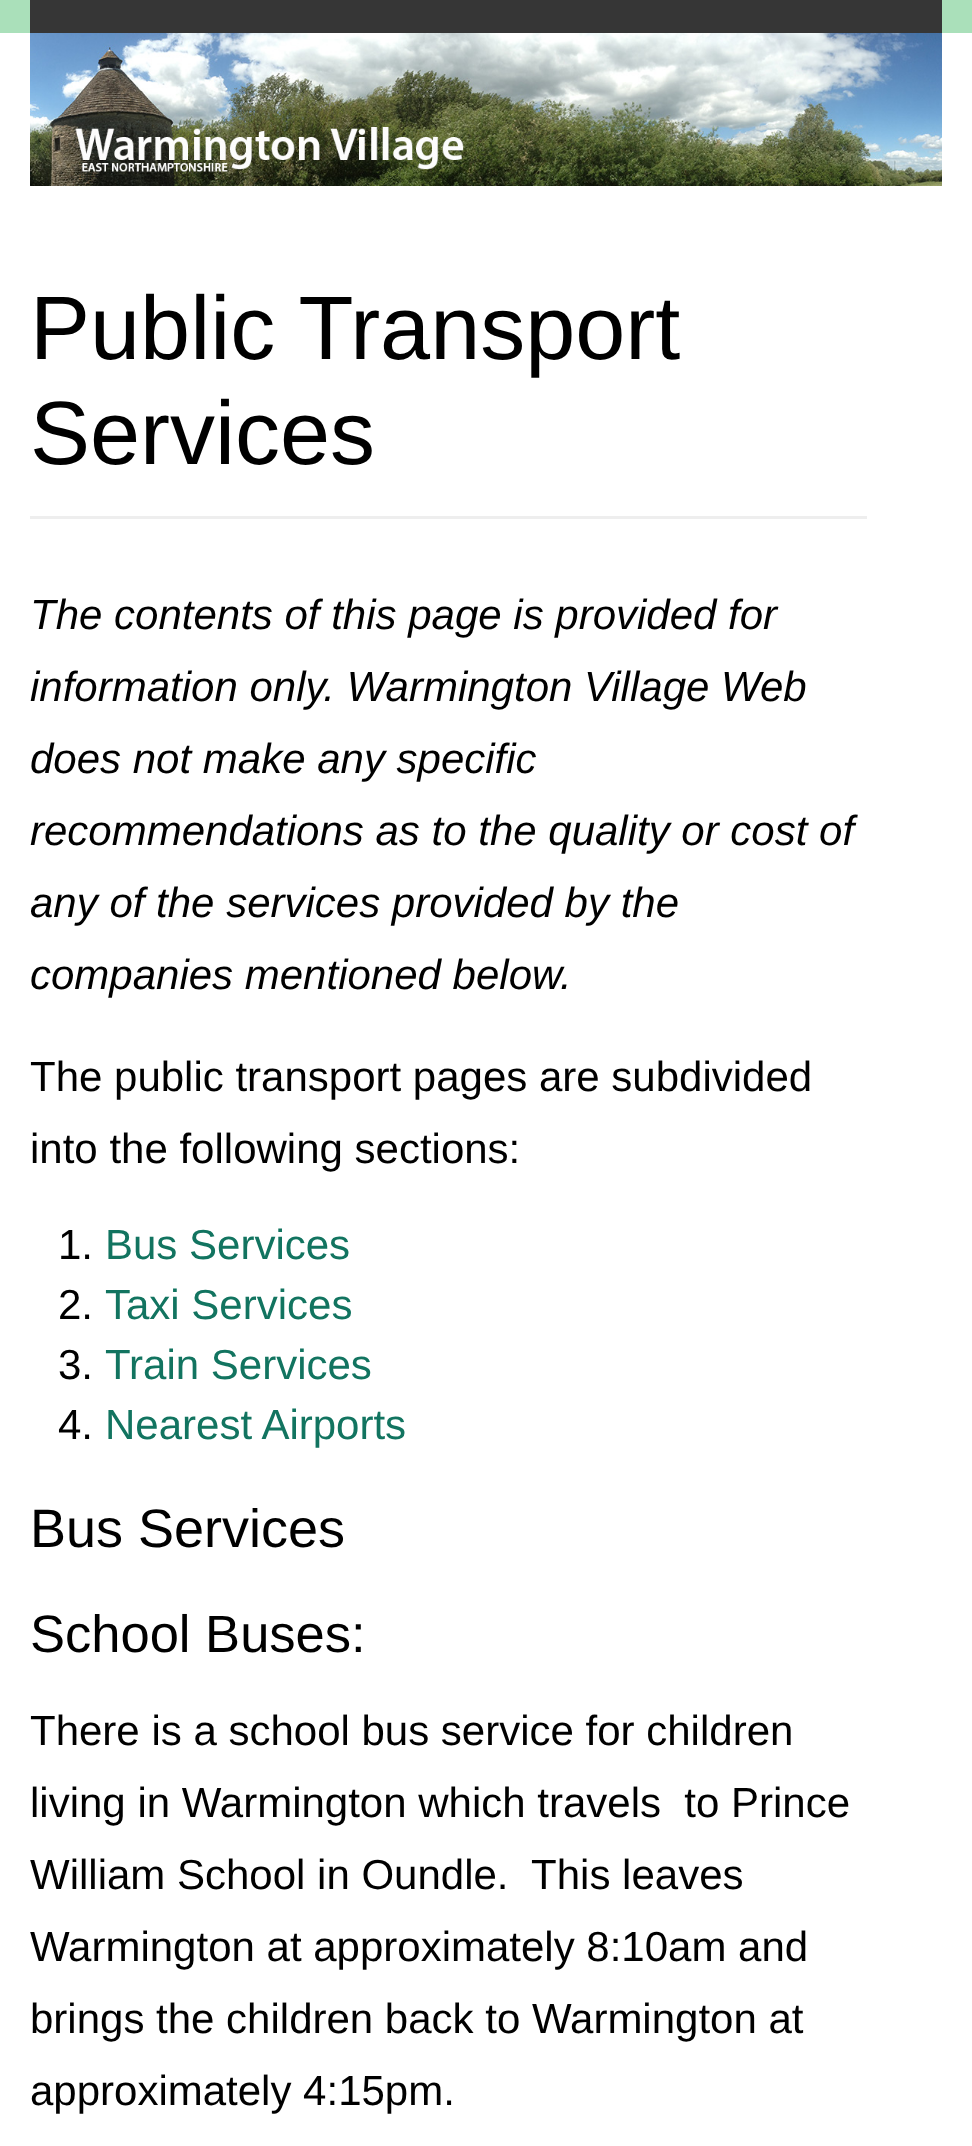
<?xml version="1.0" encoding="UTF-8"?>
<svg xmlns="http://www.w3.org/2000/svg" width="972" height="2146">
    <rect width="100%" height="100%" fill="#FFFFFF"/>
    <rect x="0" y="0" width="972" height="33" fill="#AAE0BA"/>
    <rect x="30" y="0" width="912" height="33" fill="#363636"/>
    <image x="30" y="33" width="912" height="153" href="img_01.png"/>
    <rect x="30" y="516" width="837" height="3" fill="#EEEEEE"/>
    <text font-family="Liberation Sans" font-size="90" fill="#000000">
        <tspan x="30" y="359">Public Transport</tspan>
        <tspan x="30" y="464">Services</tspan>
    </text>
    <text font-family="Liberation Sans" font-size="42" font-style="italic" fill="#000000">
        <tspan x="30" y="629">The contents of this page is provided for</tspan>
        <tspan x="30" y="701">information only. Warmington Village Web</tspan>
        <tspan x="30" y="773">does not make any specific</tspan>
        <tspan x="30" y="845">recommendations as to the quality or cost of</tspan>
        <tspan x="30" y="917">any of the services provided by the</tspan>
        <tspan x="30" y="989">companies mentioned below.</tspan>
    </text>
    <text font-family="Liberation Sans" font-size="42" fill="#000000">
        <tspan x="30" y="1091">The public transport pages are subdivided</tspan>
        <tspan x="30" y="1163">into the following sections:</tspan>
    </text>
    <text x="58" y="1259" font-family="Liberation Sans" font-size="42" fill="#000000">1.</text>
    <text x="105" y="1259" font-family="Liberation Sans" font-size="42" fill="#127460">Bus Services</text>
    <text x="58" y="1319" font-family="Liberation Sans" font-size="42" fill="#000000">2.</text>
    <text x="105" y="1319" font-family="Liberation Sans" font-size="42" fill="#127460">Taxi Services</text>
    <text x="58" y="1379" font-family="Liberation Sans" font-size="42" fill="#000000">3.</text>
    <text x="105" y="1379" font-family="Liberation Sans" font-size="42" fill="#127460">Train Services</text>
    <text x="58" y="1439" font-family="Liberation Sans" font-size="42" fill="#000000">4.</text>
    <text x="105" y="1439" font-family="Liberation Sans" font-size="42" fill="#127460">Nearest Airports</text>
    <text x="30" y="1547" font-family="Liberation Sans" font-size="54" fill="#000000">Bus Services</text>
    <text x="30" y="1652" font-family="Liberation Sans" font-size="52.5" fill="#000000">School Buses:</text>
    <text font-family="Liberation Sans" font-size="42" fill="#000000" xml:space="preserve"><tspan x="30" y="1745">There is a school bus service for children</tspan><tspan x="30" y="1817">living in Warmington which travels  to Prince</tspan><tspan x="30" y="1889">William School in Oundle.  This leaves</tspan><tspan x="30" y="1961">Warmington at approximately 8:10am and</tspan><tspan x="30" y="2033">brings the children back to Warmington at</tspan><tspan x="30" y="2105">approximately 4:15pm.</tspan></text>
</svg>
